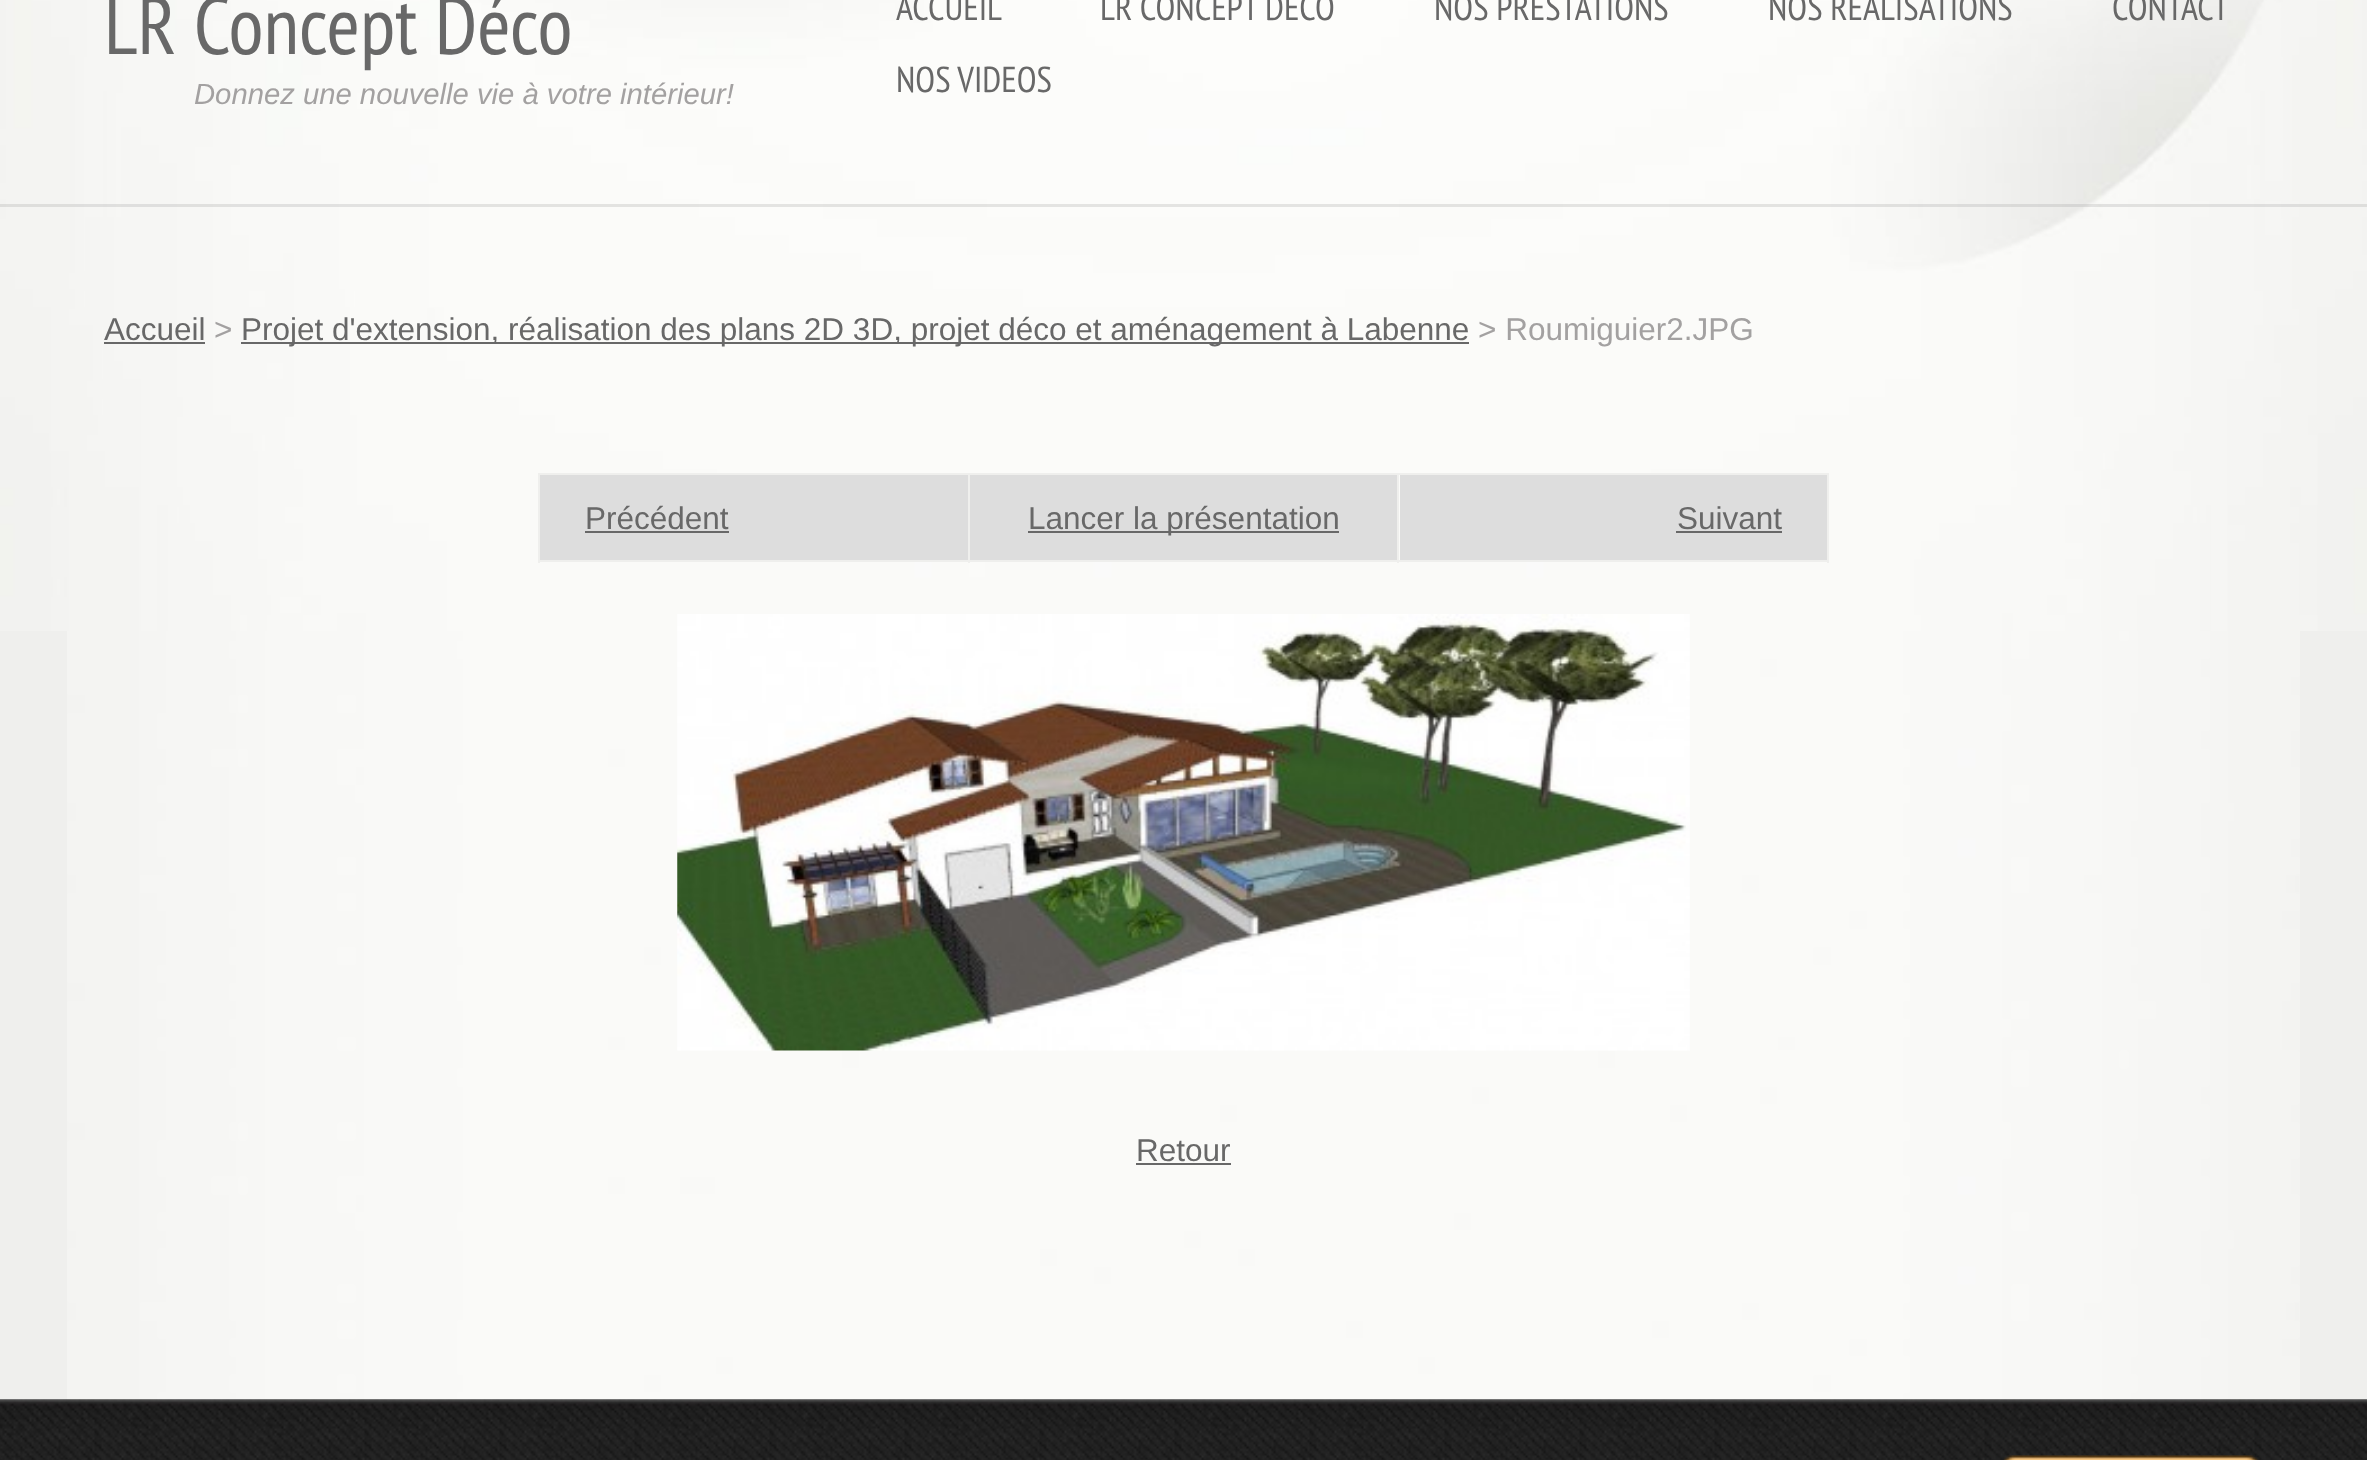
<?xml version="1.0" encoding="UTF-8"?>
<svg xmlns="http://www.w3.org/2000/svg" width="2367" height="1460">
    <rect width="100%" height="100%" fill="#EFEFED"/>
    <image x="67" y="631" width="2233" height="769" href="img_01.png"/>
    <image x="0" y="0" width="2367" height="631" href="img_02.png"/>
    <rect x="0" y="204" width="2367" height="3" fill="#9E9E9E" fill-opacity="0.26"/>
    <text x="104" y="54" font-family="PT Sans Narrow" font-size="81" fill="#686868">LR Concept Déco</text>
    <text x="194" y="104" font-family="Liberation Sans" font-size="29.25" font-style="italic" fill="#A3A1A1">Donnez une nouvelle vie à votre intérieur!</text>
    <text x="896" y="20" font-family="PT Sans Narrow" font-size="36" fill="#686868">ACCUEIL</text>
    <text x="1100" y="20" font-family="PT Sans Narrow" font-size="36" fill="#686868">LR CONCEPT DÉCO</text>
    <text x="1434" y="20" font-family="PT Sans Narrow" font-size="36" fill="#686868">NOS PRESTATIONS</text>
    <text x="1768" y="20" font-family="PT Sans Narrow" font-size="36" fill="#686868">NOS RÉALISATIONS</text>
    <text x="2112" y="20" font-family="PT Sans Narrow" font-size="36" fill="#686868">CONTACT</text>
    <text x="896" y="92" font-family="PT Sans Narrow" font-size="36" fill="#686868">NOS VIDEOS</text>
    <text x="104" y="340" font-family="Liberation Sans" font-size="31.5" fill="#686868">Accueil</text>
    <rect x="104" y="342" width="101" height="2" fill="#686868"/>
    <text x="214" y="340" font-family="Liberation Sans" font-size="31.5" fill="#A3A1A1">&gt;</text>
    <rect x="241" y="342" width="1228" height="2" fill="#686868"/>
    <text x="241" y="340" font-family="Liberation Sans" font-size="31.5" fill="#686868">Projet d'extension, réalisation des plans 2D 3D, projet déco et aménagement à Labenne</text>
    <text x="1478" y="340" font-family="Liberation Sans" font-size="31.5" fill="#A3A1A1">&gt; Roumiguier2.JPG</text>
    <rect x="538" y="473" width="1291" height="2" fill="#EFEFED"/>
    <rect x="538" y="473" width="2" height="90" fill="#EFEFED"/>
    <rect x="540" y="475" width="428" height="85" fill="#DDDDDD"/>
    <rect x="1827" y="473" width="2" height="90" fill="#EFEFED"/>
    <rect x="1397" y="560" width="432" height="2" fill="#EFEFED"/>
    <rect x="1397" y="473" width="2" height="90" fill="#EFEFED"/>
    <rect x="968" y="560" width="432" height="2" fill="#EFEFED"/>
    <rect x="968" y="473" width="2" height="90" fill="#EFEFED"/>
    <rect x="538" y="560" width="432" height="2" fill="#EFEFED"/>
    <text x="585" y="529" font-family="Liberation Sans" font-size="31.5" fill="#686868">Précédent</text>
    <rect x="585" y="531" width="144" height="2" fill="#686868"/>
    <rect x="970" y="475" width="427" height="85" fill="#DDDDDD"/>
    <rect x="1028" y="531" width="311" height="2" fill="#686868"/>
    <text x="1028" y="529" font-family="Liberation Sans" font-size="31.5" fill="#686868">Lancer la présentation</text>
    <rect x="1400" y="475" width="427" height="85" fill="#DDDDDD"/>
    <text x="1677" y="529" font-family="Liberation Sans" font-size="31.5" fill="#686868">Suivant</text>
    <rect x="1676" y="531" width="106" height="2" fill="#686868"/>
    <image x="677" y="614" width="1013" height="437" href="img_03.png"/>
    <text x="1136" y="1161" font-family="Liberation Sans" font-size="31.5" fill="#686868">Retour</text>
    <rect x="1136" y="1163" width="95" height="2" fill="#686868"/>
    <image x="0" y="1399" width="2367" height="61" href="img_04.png"/>
    <image x="2003" y="1455" width="256" height="5" href="img_05.png"/>
</svg>
